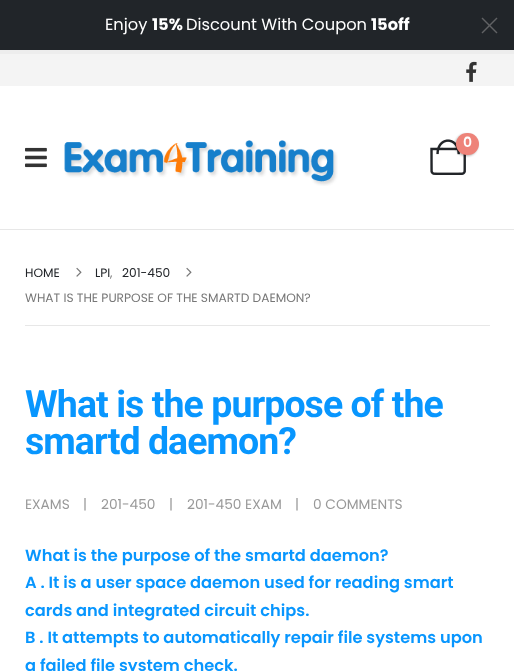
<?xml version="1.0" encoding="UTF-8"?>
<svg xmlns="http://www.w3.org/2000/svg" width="514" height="671">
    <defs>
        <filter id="blur1" x="-50%" y="-200%" width="200%" height="500%"><feGaussianBlur stdDeviation="1"/></filter>
    </defs>
    <rect width="100%" height="100%" fill="#FFFFFF"/>
    <rect x="0" y="0" width="514" height="50" fill="#212529"/>
    <text x="105" y="30" font-family="Poppins" font-size="16.25" fill="#FFFFFF">Enjoy</text>
    <text x="152" y="30" font-family="Poppins" font-size="16.25" font-weight="700" fill="#FFFFFF">15%</text>
    <text x="186" y="30" font-family="Poppins" font-size="16.25" fill="#FFFFFF">Discount With Coupon</text>
    <text x="371" y="30" font-family="Poppins" font-size="16.25" font-weight="700" fill="#FFFFFF">15off</text>
    <path d="M 482.5 17.5 L 497.5 32.5 L 496.5 33.5 L 481.5 18.5 Z" fill="#616264"/>
    <path d="M 496.5 17.5 L 497.5 18.5 L 482.5 33.5 L 481.5 32.5 Z" fill="#616264"/>
    <rect x="0" y="50" width="514" height="4" fill="#EDEDED"/>
    <rect x="0" y="54" width="514" height="32" fill="#F4F4F4"/>
    <image x="466" y="61" width="11" height="21" href="img_01.png"/>
    <image x="25" y="147" width="22" height="21" href="img_02.png"/>
    <image x="64" y="140" width="274" height="46" href="img_03.png"/>
    <image x="430" y="139" width="36" height="36" href="img_04.png"/>
    <rect x="455" y="134" width="23" height="22" rx="11" fill="#000000" fill-opacity="0.3" filter="url(#blur1)"/>
    <rect x="456" y="133" width="23" height="22" rx="11" fill="#EE8379"/>
    <text x="463" y="147" font-family="Poppins" font-size="14" font-weight="600" fill="#FFFFFF">0</text>
    <rect x="0" y="229" width="514" height="1" fill="#E7E7E7"/>
    <text x="25" y="277" font-family="Poppins" font-size="12.2" fill="#222529">HOME</text>
    <image x="76" y="267" width="6" height="10" href="img_05.png"/>
    <text x="95" y="277" font-family="Poppins" font-size="12.2" fill="#222529">LPI</text>
    <text x="110" y="277" font-family="Poppins" font-size="12.2" fill="#777777">,</text>
    <text x="122" y="277" font-family="Poppins" font-size="12.2" fill="#222529">201-450</text>
    <image x="186" y="267" width="6" height="10" href="img_05.png"/>
    <text x="25" y="302" font-family="Poppins" font-size="12.2" fill="#777777">WHAT IS THE PURPOSE OF THE SMARTD DAEMON?</text>
    <rect x="25" y="325" width="465" height="1" fill="#E7E7E7"/>
    <text font-family="Roboto" font-size="37.5" font-weight="700" letter-spacing="-0.95" fill="#0896FE">
        <tspan x="25" y="417">What is the purpose of the</tspan>
        <tspan x="25" y="454">smartd daemon?</tspan>
    </text>
    <text x="25" y="509" font-family="Poppins" font-size="13.75" fill="#999999">EXAMS</text>
    <text x="83" y="509" font-family="Poppins" font-size="13.75" fill="#999999">|</text>
    <text x="101" y="509" font-family="Poppins" font-size="13.75" fill="#999999">201-450</text>
    <text x="169" y="509" font-family="Poppins" font-size="13.75" fill="#999999">|</text>
    <text x="187" y="509" font-family="Poppins" font-size="13.75" fill="#999999">201-450 EXAM</text>
    <text x="295" y="509" font-family="Poppins" font-size="13.75" fill="#999999">|</text>
    <text x="313" y="509" font-family="Poppins" font-size="13.75" fill="#999999">0 COMMENTS</text>
    <text font-family="Poppins" font-size="16.25" font-weight="600" fill="#0896FE">
        <tspan x="25" y="561">What is the purpose of the smartd daemon?</tspan>
        <tspan x="25" y="588">A . It is a user space daemon used for reading smart</tspan>
        <tspan x="25" y="616">cards and integrated circuit chips.</tspan>
        <tspan x="25" y="643">B . It attempts to automatically repair file systems upon</tspan>
        <tspan x="25" y="671">a failed file system check.</tspan>
    </text>
</svg>
